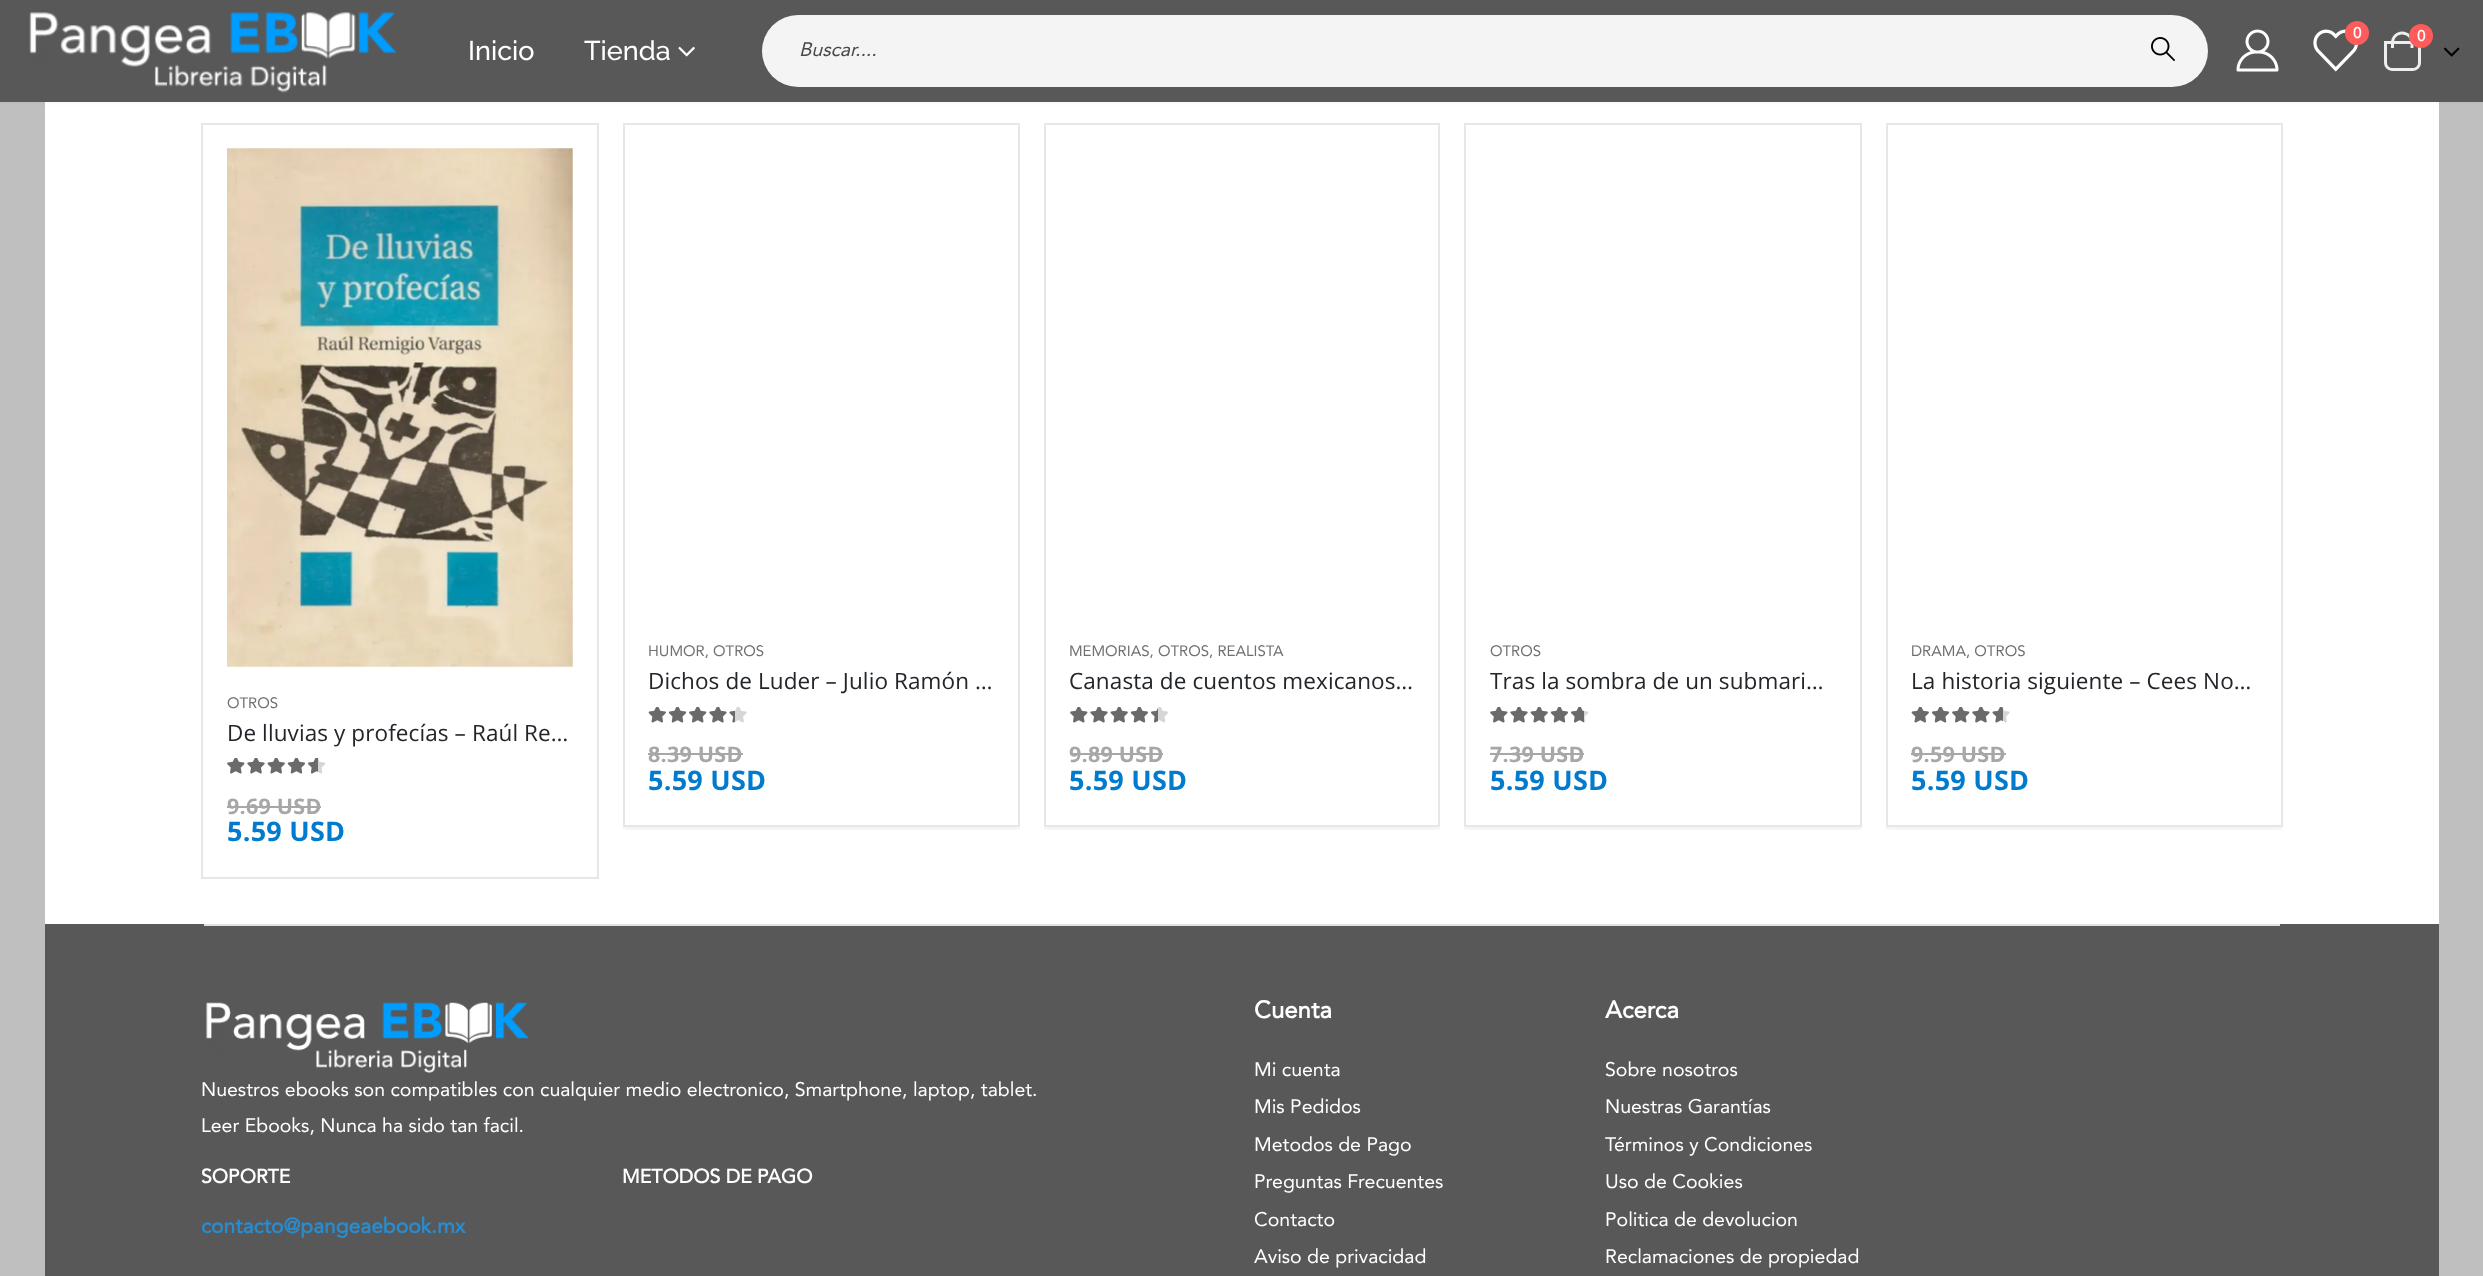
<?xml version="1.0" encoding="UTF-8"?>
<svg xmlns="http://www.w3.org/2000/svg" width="2483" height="1276">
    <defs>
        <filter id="blur1" x="-50%" y="-200%" width="200%" height="500%"><feGaussianBlur stdDeviation="2"/></filter>
        <clipPath id="clip1"><rect x="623" y="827" width="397" height="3"/></clipPath>
        <clipPath id="clip2"><rect x="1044" y="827" width="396" height="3"/></clipPath>
        <clipPath id="clip3"><rect x="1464" y="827" width="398" height="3"/></clipPath>
        <clipPath id="clip4"><rect x="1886" y="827" width="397" height="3"/></clipPath>
    </defs>
    <rect width="100%" height="100%" fill="#BFBFBF"/>
    <rect x="45" y="102" width="2394" height="822" fill="#FFFFFF"/>
    <rect x="0" y="0" width="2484" height="102" fill="#000000" fill-opacity="0.06" filter="url(#blur1)"/>
    <rect x="0" y="0" width="2483" height="102" fill="#585858"/>
    <image x="29" y="12" width="368" height="81" href="img_01.png"/>
    <text x="468" y="60" font-family="Raleway" font-size="27" font-weight="100" fill="#FFFFFF">Inicio</text>
    <text x="584" y="60" font-family="Raleway" font-size="27" font-weight="100" fill="#FFFFFF">Tienda</text>
    <image x="678" y="46" width="17" height="11" href="img_02.png"/>
    <image x="2236" y="29" width="43" height="43" href="img_03.png"/>
    <image x="2313" y="29" width="46" height="43" href="img_04.png"/>
    <circle cx="2357" cy="33" r="12" fill="#FF5B5B"/>
    <text x="2353" y="38" font-family="Avenir" font-size="15" font-weight="700" fill="#FFFFFF">0</text>
    <path d="M 2385.5 42.5 H 2419.5 V 63 C 2419.5 66.5 2416.5 69.5 2413 69.5 H 2392 C 2388.5 69.5 2385.5 66.5 2385.5 63 Z" fill="none" stroke="#EEEEEE" stroke-width="3"/>
    <path d="M 2402 31.5 C 2408.5 31.5 2413.5 36.5 2413.5 43 V 48 H 2391 V 43 C 2391 36.5 2396 31.5 2402 31.5 Z M 2402 34.5 C 2407 34.5 2410.5 38 2410.5 43 V 48 H 2394 V 43 C 2394 38 2397.5 34.5 2402 34.5 Z" fill="#EEEEEE" fill-rule="evenodd"/>
    <circle cx="2421" cy="36" r="12" fill="#FF5B5B"/>
    <text x="2417" y="41" font-family="Avenir" font-size="15" font-weight="700" fill="#FFFFFF">0</text>
    <image x="2443" y="47" width="17" height="10" href="img_05.png"/>
    <rect x="762" y="15" width="1446" height="72" rx="36" fill="#F4F4F4"/>
    <text x="799" y="56" font-family="Avenir" font-size="19.5" font-style="italic" fill="#494949">Buscar....</text>
    <image x="2151" y="37" width="24" height="24" href="img_06.png"/>
    <rect x="202" y="124" width="396" height="754" fill="none" stroke="#E7E7E7" stroke-width="2"/>
    <image x="227" y="148" width="346" height="519" href="img_07.png"/>
    <text x="227" y="708" font-family="Avenir" font-size="15" fill="#707070">OTROS</text>
    <text x="227" y="741" font-family="Open Sans" font-size="22.5" letter-spacing="0.1" fill="#222529">De lluvias y profecías – Raúl Re…</text>
    <image x="227" y="758" width="99" height="16" href="img_08.png"/>
    <image x="227" y="758" width="91" height="16" href="img_09.png"/>
    <text x="227" y="814" font-family="Open Sans" font-size="21.5" font-weight="700" letter-spacing="0.25" fill="#A7A7A7">9.69 USD</text>
    <rect x="227" y="806" width="94" height="2" fill="#A7A7A7"/>
    <text x="227" y="841" font-family="Open Sans" font-size="27" font-weight="700" letter-spacing="0.25" fill="#007BCE">5.59 USD</text>
    <g clip-path="url(#clip1)">
        <rect x="623" y="126" width="397" height="704" fill="#000000" fill-opacity="0.05" filter="url(#blur1)"/>
    </g>
    <rect x="624" y="124" width="395" height="702" fill="none" stroke="#E7E7E7" stroke-width="2"/>
    <text x="648" y="656" font-family="Avenir" font-size="15" fill="#707070">HUMOR, OTROS</text>
    <text x="648" y="689" font-family="Open Sans" font-size="22.5" letter-spacing="0.1" fill="#222529">Dichos de Luder – Julio Ramón …</text>
    <image x="648" y="707" width="99" height="16" href="img_10.png"/>
    <image x="648" y="707" width="87" height="16" href="img_11.png"/>
    <text x="648" y="762" font-family="Open Sans" font-size="21.5" font-weight="700" letter-spacing="0.25" fill="#A7A7A7">8.39 USD</text>
    <rect x="648" y="753" width="95" height="2" fill="#A7A7A7"/>
    <text x="648" y="790" font-family="Open Sans" font-size="27" font-weight="700" letter-spacing="0.25" fill="#007BCE">5.59 USD</text>
    <g clip-path="url(#clip2)">
        <rect x="1044" y="126" width="396" height="704" fill="#000000" fill-opacity="0.05" filter="url(#blur1)"/>
    </g>
    <rect x="1045" y="124" width="394" height="702" fill="none" stroke="#E7E7E7" stroke-width="2"/>
    <text x="1069" y="656" font-family="Avenir" font-size="15" fill="#707070">MEMORIAS, OTROS, REALISTA</text>
    <text x="1069" y="689" font-family="Open Sans" font-size="22.5" letter-spacing="0.1" fill="#222529">Canasta de cuentos mexicanos…</text>
    <image x="1070" y="707" width="99" height="16" href="img_08.png"/>
    <image x="1070" y="707" width="88" height="16" href="img_12.png"/>
    <text x="1069" y="762" font-family="Open Sans" font-size="21.5" font-weight="700" letter-spacing="0.25" fill="#A7A7A7">9.89 USD</text>
    <rect x="1070" y="753" width="93" height="2" fill="#A7A7A7"/>
    <text x="1069" y="790" font-family="Open Sans" font-size="27" font-weight="700" letter-spacing="0.25" fill="#007BCE">5.59 USD</text>
    <g clip-path="url(#clip3)">
        <rect x="1464" y="126" width="398" height="704" fill="#000000" fill-opacity="0.05" filter="url(#blur1)"/>
    </g>
    <rect x="1465" y="124" width="396" height="702" fill="none" stroke="#E7E7E7" stroke-width="2"/>
    <text x="1490" y="656" font-family="Avenir" font-size="15" fill="#707070">OTROS</text>
    <text x="1490" y="689" font-family="Open Sans" font-size="22.5" letter-spacing="0.1" fill="#222529">Tras la sombra de un submari…</text>
    <image x="1490" y="707" width="99" height="16" href="img_08.png"/>
    <image x="1490" y="707" width="94" height="16" href="img_13.png"/>
    <text x="1490" y="762" font-family="Open Sans" font-size="21.5" font-weight="700" letter-spacing="0.25" fill="#A7A7A7">7.39 USD</text>
    <rect x="1490" y="753" width="94" height="2" fill="#A7A7A7"/>
    <text x="1490" y="790" font-family="Open Sans" font-size="27" font-weight="700" letter-spacing="0.25" fill="#007BCE">5.59 USD</text>
    <g clip-path="url(#clip4)">
        <rect x="1886" y="126" width="397" height="704" fill="#000000" fill-opacity="0.05" filter="url(#blur1)"/>
    </g>
    <rect x="1887" y="124" width="395" height="702" fill="none" stroke="#E7E7E7" stroke-width="2"/>
    <text x="1911" y="656" font-family="Avenir" font-size="15" fill="#707070">DRAMA, OTROS</text>
    <text x="1911" y="689" font-family="Open Sans" font-size="22.5" letter-spacing="0.1" fill="#222529">La historia siguiente – Cees No…</text>
    <image x="1911" y="707" width="99" height="16" href="img_10.png"/>
    <image x="1911" y="707" width="92" height="16" href="img_14.png"/>
    <text x="1911" y="762" font-family="Open Sans" font-size="21.5" font-weight="700" letter-spacing="0.25" fill="#A7A7A7">9.59 USD</text>
    <rect x="1911" y="753" width="95" height="2" fill="#A7A7A7"/>
    <text x="1911" y="790" font-family="Open Sans" font-size="27" font-weight="700" letter-spacing="0.25" fill="#007BCE">5.59 USD</text>
    <rect x="45" y="924" width="2394" height="352" fill="#585858"/>
    <rect x="204" y="924" width="2076" height="2" fill="#E1E1E1"/>
    <image x="206" y="1002" width="323" height="71" href="img_15.png"/>
    <text font-family="Avenir" font-size="19.5" fill="#FFFFFF">
        <tspan x="201" y="1096">Nuestros ebooks son compatibles con cualquier medio electronico, Smartphone, laptop, tablet.</tspan>
        <tspan x="201" y="1132">Leer Ebooks, Nunca ha sido tan facil.</tspan>
    </text>
    <text x="201" y="1183" font-family="Avenir" font-size="19.5" font-weight="700" fill="#FFFFFF">SOPORTE</text>
    <text x="201" y="1233" font-family="Avenir" font-size="21" font-weight="700" fill="#298CCF">contacto@pangeaebook.mx</text>
    <text x="622" y="1183" font-family="Avenir" font-size="19.5" font-weight="700" fill="#FFFFFF">METODOS DE PAGO</text>
    <text x="1254" y="1018" font-family="Avenir" font-size="24" font-weight="700" fill="#FFFFFF">Cuenta</text>
    <text font-family="Avenir" font-size="19.5" fill="#FFFFFF">
        <tspan x="1254" y="1076">Mi cuenta</tspan>
        <tspan x="1254" y="1113">Mis Pedidos</tspan>
        <tspan x="1254" y="1151">Metodos de Pago</tspan>
        <tspan x="1254" y="1188">Preguntas Frecuentes</tspan>
        <tspan x="1254" y="1226">Contacto</tspan>
        <tspan x="1254" y="1263">Aviso de privacidad</tspan>
    </text>
    <text x="1605" y="1018" font-family="Avenir" font-size="24" font-weight="700" fill="#FFFFFF">Acerca</text>
    <text font-family="Avenir" font-size="19.5" fill="#FFFFFF">
        <tspan x="1605" y="1076">Sobre nosotros</tspan>
        <tspan x="1605" y="1113">Nuestras Garantías</tspan>
        <tspan x="1605" y="1151">Términos y Condiciones</tspan>
        <tspan x="1605" y="1188">Uso de Cookies</tspan>
        <tspan x="1605" y="1226">Politica de devolucion</tspan>
        <tspan x="1605" y="1263">Reclamaciones de propiedad</tspan>
    </text>
</svg>
